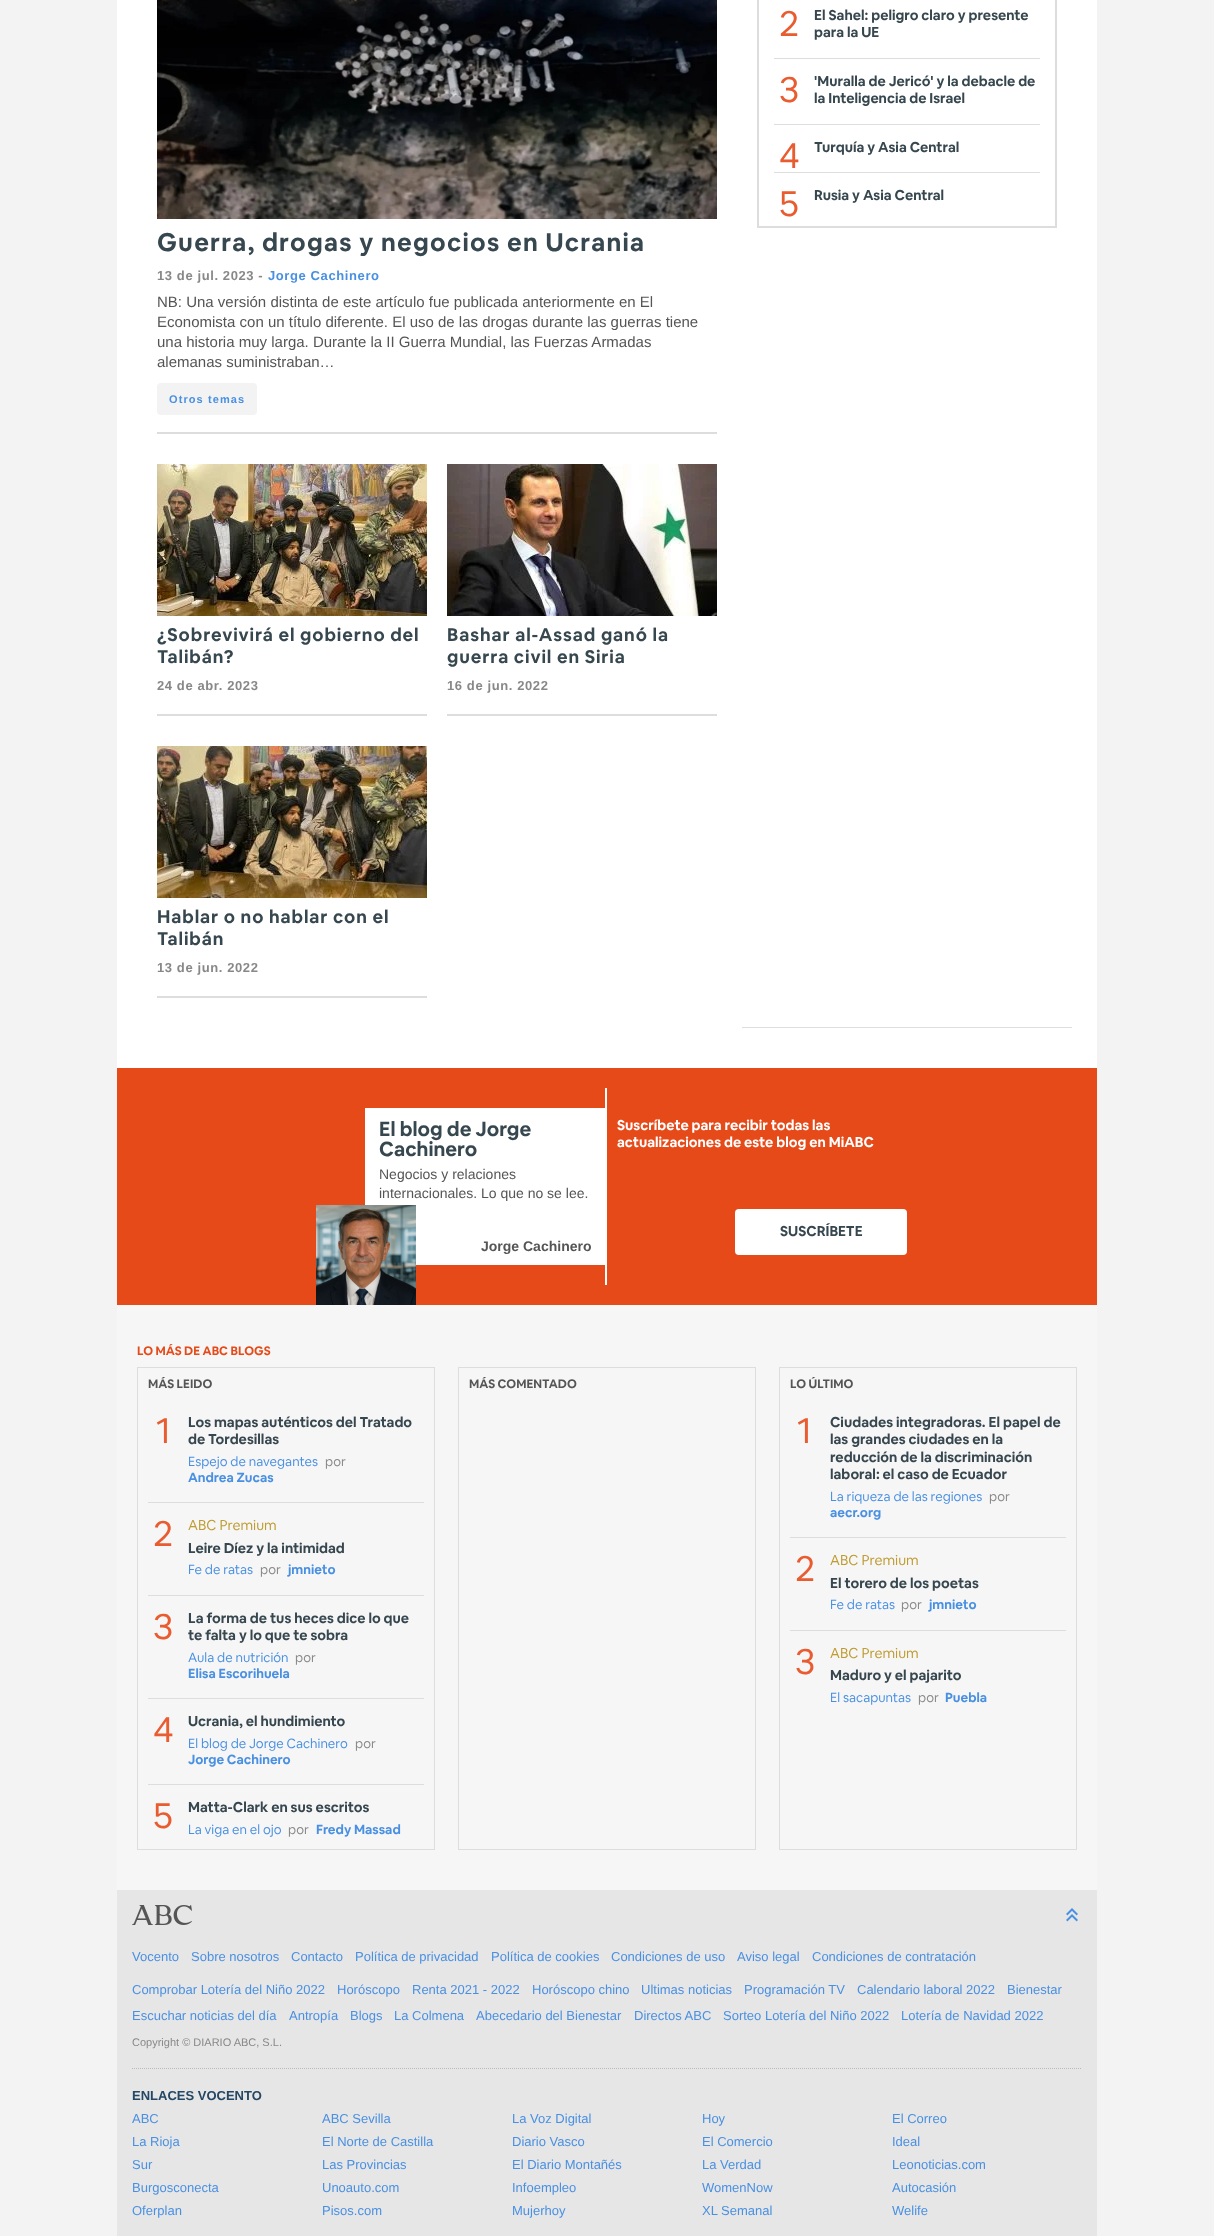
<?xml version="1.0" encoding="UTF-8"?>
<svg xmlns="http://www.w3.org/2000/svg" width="1214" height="2236">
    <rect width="100%" height="100%" fill="#F3F3F3"/>
    <rect x="117" y="0" width="980" height="1068" fill="#FFFFFF"/>
    <rect x="758" y="-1" width="298" height="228" fill="none" stroke="#DDDDDD" stroke-width="2"/>
    <rect x="774" y="58" width="266" height="1" fill="#DDDDDD"/>
    <text x="779" y="36" font-family="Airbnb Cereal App" font-size="36" fill="#E95C30">2</text>
    <text font-family="Airbnb Cereal App" font-size="14" font-weight="700" fill="#37474F">
        <tspan x="814" y="20">El Sahel: peligro claro y presente</tspan>
        <tspan x="814" y="37">para la UE</tspan>
    </text>
    <rect x="774" y="124" width="266" height="1" fill="#DDDDDD"/>
    <text x="779" y="102" font-family="Airbnb Cereal App" font-size="36" fill="#E95C30">3</text>
    <text font-family="Airbnb Cereal App" font-size="14" font-weight="700" fill="#37474F">
        <tspan x="814" y="86">'Muralla de Jericó' y la debacle de</tspan>
        <tspan x="814" y="103">la Inteligencia de Israel</tspan>
    </text>
    <rect x="774" y="172" width="266" height="1" fill="#DDDDDD"/>
    <text x="779" y="168" font-family="Airbnb Cereal App" font-size="36" fill="#E95C30">4</text>
    <text x="814" y="152" font-family="Airbnb Cereal App" font-size="14" font-weight="700" fill="#37474F">Turquía y Asia Central</text>
    <text x="779" y="216" font-family="Airbnb Cereal App" font-size="36" fill="#E95C30">5</text>
    <text x="814" y="200" font-family="Airbnb Cereal App" font-size="14" font-weight="700" fill="#37474F">Rusia y Asia Central</text>
    <rect x="742" y="1027" width="330" height="1" fill="#DDDDDD"/>
    <rect x="157" y="432" width="560" height="2" fill="#DDDDDD"/>
    <image x="157" y="0" width="560" height="219" href="img_01.png"/>
    <text x="157" y="251" font-family="Airbnb Cereal App" font-size="25" font-weight="700" letter-spacing="1.25" fill="#37474F">Guerra, drogas y negocios en Ucrania</text>
    <text x="157" y="280" font-family="Liberation Sans" font-size="13" font-weight="700" letter-spacing="0.6" fill="#888888">13 de jul. 2023 -</text>
    <text x="268" y="280" font-family="Liberation Sans" font-size="13" font-weight="700" letter-spacing="0.6" fill="#4A90E2">Jorge Cachinero</text>
    <text font-family="Liberation Sans" font-size="15" fill="#555555">
        <tspan x="157" y="307">NB: Una versión distinta de este artículo fue publicada anteriormente en El</tspan>
        <tspan x="157" y="327">Economista con un título diferente. El uso de las drogas durante las guerras tiene</tspan>
        <tspan x="157" y="347">una historia muy larga. Durante la II Guerra Mundial, las Fuerzas Armadas</tspan>
        <tspan x="157" y="367">alemanas suministraban…</tspan>
    </text>
    <rect x="157" y="383" width="100" height="32" rx="4" fill="#F3F3F3"/>
    <text x="169" y="403" font-family="Liberation Sans" font-size="11" font-weight="700" letter-spacing="1.1" fill="#4A90E2">Otros temas</text>
    <rect x="157" y="714" width="270" height="2" fill="#DDDDDD"/>
    <image x="157" y="464" width="270" height="152" href="img_02.png"/>
    <text font-family="Airbnb Cereal App" font-size="18" font-weight="700" letter-spacing="0.9" fill="#37474F">
        <tspan x="157" y="641">¿Sobrevivirá el gobierno del</tspan>
        <tspan x="157" y="663">Talibán?</tspan>
    </text>
    <text x="157" y="690" font-family="Liberation Sans" font-size="13" font-weight="700" letter-spacing="0.6" fill="#888888">24 de abr. 2023</text>
    <rect x="447" y="714" width="270" height="2" fill="#DDDDDD"/>
    <image x="447" y="464" width="270" height="152" href="img_03.png"/>
    <text font-family="Airbnb Cereal App" font-size="18" font-weight="700" letter-spacing="0.9" fill="#37474F">
        <tspan x="447" y="641">Bashar al-Assad ganó la</tspan>
        <tspan x="447" y="663">guerra civil en Siria</tspan>
    </text>
    <text x="447" y="690" font-family="Liberation Sans" font-size="13" font-weight="700" letter-spacing="0.6" fill="#888888">16 de jun. 2022</text>
    <rect x="157" y="996" width="270" height="2" fill="#DDDDDD"/>
    <image x="157" y="746" width="270" height="152" href="img_04.png"/>
    <text font-family="Airbnb Cereal App" font-size="18" font-weight="700" letter-spacing="0.9" fill="#37474F">
        <tspan x="157" y="923">Hablar o no hablar con el</tspan>
        <tspan x="157" y="945">Talibán</tspan>
    </text>
    <text x="157" y="972" font-family="Liberation Sans" font-size="13" font-weight="700" letter-spacing="0.6" fill="#888888">13 de jun. 2022</text>
    <rect x="117" y="1068" width="980" height="237" fill="#E64A19"/>
    <rect x="605" y="1088" width="2" height="197" fill="#FFFFFF"/>
    <rect x="365" y="1108" width="240" height="157" fill="#FFFFFF"/>
    <text font-family="Airbnb Cereal App" font-size="20" font-weight="700" fill="#37474F">
        <tspan x="379" y="1136">El blog de Jorge</tspan>
        <tspan x="379" y="1156">Cachinero</tspan>
    </text>
    <text font-family="Liberation Sans" font-size="14" fill="#555555">
        <tspan x="379" y="1179">Negocios y relaciones</tspan>
        <tspan x="379" y="1198">internacionales. Lo que no se lee.</tspan>
    </text>
    <image x="316" y="1205" width="100" height="100" href="img_05.png"/>
    <text x="481" y="1251" font-family="Liberation Sans" font-size="14" font-weight="700" fill="#555555">Jorge Cachinero</text>
    <text font-family="Airbnb Cereal App" font-size="14" font-weight="700" fill="#FFFFFF">
        <tspan x="617" y="1130">Suscríbete para recibir todas las</tspan>
        <tspan x="617" y="1147">actualizaciones de este blog en MiABC</tspan>
    </text>
    <rect x="735" y="1209" width="172" height="46" rx="4" fill="#FFFFFF"/>
    <text x="780" y="1236" font-family="Airbnb Cereal App" font-size="14" font-weight="700" fill="#37474F">SUSCRÍBETE</text>
    <rect x="117" y="1305" width="980" height="585" fill="#F6F6F6"/>
    <text x="137" y="1355" font-family="Airbnb Cereal App" font-size="12" font-weight="700" fill="#E64A19">LO MÁS DE ABC BLOGS</text>
    <rect x="137.5" y="1367.5" width="297" height="482" fill="none" stroke="#DDDDDD"/>
    <text x="148" y="1388" font-family="Airbnb Cereal App" font-size="12" font-weight="700" fill="#555555">MÁS LEIDO</text>
    <rect x="148" y="1502" width="276" height="1" fill="#DDDDDD"/>
    <text x="156" y="1443" font-family="Airbnb Cereal App" font-size="36" fill="#E95C30">1</text>
    <text font-family="Airbnb Cereal App" font-size="14" font-weight="700" fill="#37474F">
        <tspan x="188" y="1427">Los mapas auténticos del Tratado</tspan>
        <tspan x="188" y="1444">de Tordesillas</tspan>
    </text>
    <text x="188" y="1466" font-family="Airbnb Cereal App" font-size="13" fill="#4A90E2">Espejo de navegantes</text>
    <text x="325" y="1466" font-family="Airbnb Cereal App" font-size="13" fill="#888888">por</text>
    <text x="188" y="1482" font-family="Airbnb Cereal App" font-size="13" font-weight="700" fill="#4A90E2">Andrea Zucas</text>
    <rect x="148" y="1595" width="276" height="1" fill="#DDDDDD"/>
    <text x="153" y="1546" font-family="Airbnb Cereal App" font-size="36" fill="#E95C30">2</text>
    <text x="188" y="1530" font-family="Airbnb Cereal App" font-size="14" fill="#BF9B30">ABC Premium</text>
    <text x="188" y="1553" font-family="Airbnb Cereal App" font-size="14" font-weight="700" fill="#37474F">Leire Díez y la intimidad</text>
    <text x="188" y="1574" font-family="Airbnb Cereal App" font-size="13" fill="#4A90E2">Fe de ratas</text>
    <text x="260" y="1574" font-family="Airbnb Cereal App" font-size="13" fill="#888888">por</text>
    <text x="288" y="1574" font-family="Airbnb Cereal App" font-size="13" font-weight="700" fill="#4A90E2">jmnieto</text>
    <rect x="148" y="1698" width="276" height="1" fill="#DDDDDD"/>
    <text x="153" y="1639" font-family="Airbnb Cereal App" font-size="36" fill="#E95C30">3</text>
    <text font-family="Airbnb Cereal App" font-size="14" font-weight="700" fill="#37474F">
        <tspan x="188" y="1623">La forma de tus heces dice lo que</tspan>
        <tspan x="188" y="1640">te falta y lo que te sobra</tspan>
    </text>
    <text x="188" y="1662" font-family="Airbnb Cereal App" font-size="13" fill="#4A90E2">Aula de nutrición</text>
    <text x="295" y="1662" font-family="Airbnb Cereal App" font-size="13" fill="#888888">por</text>
    <text x="188" y="1678" font-family="Airbnb Cereal App" font-size="13" font-weight="700" fill="#4A90E2">Elisa Escorihuela</text>
    <rect x="148" y="1784" width="276" height="1" fill="#DDDDDD"/>
    <text x="153" y="1742" font-family="Airbnb Cereal App" font-size="36" fill="#E95C30">4</text>
    <text x="188" y="1726" font-family="Airbnb Cereal App" font-size="14" font-weight="700" fill="#37474F">Ucrania, el hundimiento</text>
    <text x="188" y="1748" font-family="Airbnb Cereal App" font-size="13" fill="#4A90E2">El blog de Jorge Cachinero</text>
    <text x="355" y="1748" font-family="Airbnb Cereal App" font-size="13" fill="#888888">por</text>
    <text x="188" y="1764" font-family="Airbnb Cereal App" font-size="13" font-weight="700" fill="#4A90E2">Jorge Cachinero</text>
    <text x="153" y="1828" font-family="Airbnb Cereal App" font-size="36" fill="#E95C30">5</text>
    <text x="188" y="1812" font-family="Airbnb Cereal App" font-size="14" font-weight="700" fill="#37474F">Matta-Clark en sus escritos</text>
    <text x="188" y="1834" font-family="Airbnb Cereal App" font-size="13" fill="#4A90E2">La viga en el ojo</text>
    <text x="288" y="1834" font-family="Airbnb Cereal App" font-size="13" fill="#888888">por</text>
    <text x="316" y="1834" font-family="Airbnb Cereal App" font-size="13" font-weight="700" fill="#4A90E2">Fredy Massad</text>
    <rect x="458.5" y="1367.5" width="297" height="482" fill="none" stroke="#DDDDDD"/>
    <text x="469" y="1388" font-family="Airbnb Cereal App" font-size="12" font-weight="700" fill="#555555">MÁS COMENTADO</text>
    <rect x="779.5" y="1367.5" width="297" height="482" fill="none" stroke="#DDDDDD"/>
    <text x="790" y="1388" font-family="Airbnb Cereal App" font-size="12" font-weight="700" fill="#555555">LO ÚLTIMO</text>
    <rect x="790" y="1537" width="276" height="1" fill="#DDDDDD"/>
    <text x="797" y="1443" font-family="Airbnb Cereal App" font-size="36" fill="#E95C30">1</text>
    <text font-family="Airbnb Cereal App" font-size="14" font-weight="700" fill="#37474F">
        <tspan x="830" y="1427">Ciudades integradoras. El papel de</tspan>
        <tspan x="830" y="1444">las grandes ciudades en la</tspan>
        <tspan x="830" y="1462">reducción de la discriminación</tspan>
        <tspan x="830" y="1479">laboral: el caso de Ecuador</tspan>
    </text>
    <text x="830" y="1501" font-family="Airbnb Cereal App" font-size="13" fill="#4A90E2">La riqueza de las regiones</text>
    <text x="989" y="1501" font-family="Airbnb Cereal App" font-size="13" fill="#888888">por</text>
    <text x="830" y="1517" font-family="Airbnb Cereal App" font-size="13" font-weight="700" fill="#4A90E2">aecr.org</text>
    <rect x="790" y="1630" width="276" height="1" fill="#DDDDDD"/>
    <text x="795" y="1581" font-family="Airbnb Cereal App" font-size="36" fill="#E95C30">2</text>
    <text x="830" y="1565" font-family="Airbnb Cereal App" font-size="14" fill="#BF9B30">ABC Premium</text>
    <text x="830" y="1588" font-family="Airbnb Cereal App" font-size="14" font-weight="700" fill="#37474F">El torero de los poetas</text>
    <text x="830" y="1609" font-family="Airbnb Cereal App" font-size="13" fill="#4A90E2">Fe de ratas</text>
    <text x="901" y="1609" font-family="Airbnb Cereal App" font-size="13" fill="#888888">por</text>
    <text x="929" y="1609" font-family="Airbnb Cereal App" font-size="13" font-weight="700" fill="#4A90E2">jmnieto</text>
    <text x="795" y="1674" font-family="Airbnb Cereal App" font-size="36" fill="#E95C30">3</text>
    <text x="830" y="1658" font-family="Airbnb Cereal App" font-size="14" fill="#BF9B30">ABC Premium</text>
    <text x="830" y="1680" font-family="Airbnb Cereal App" font-size="14" font-weight="700" fill="#37474F">Maduro y el pajarito</text>
    <text x="830" y="1702" font-family="Airbnb Cereal App" font-size="13" fill="#4A90E2">El sacapuntas</text>
    <text x="918" y="1702" font-family="Airbnb Cereal App" font-size="13" fill="#888888">por</text>
    <text x="945" y="1702" font-family="Airbnb Cereal App" font-size="13" font-weight="700" fill="#4A90E2">Puebla</text>
    <rect x="117" y="1890" width="980" height="346" fill="#E6E6E6"/>
    <image x="132" y="1905" width="60" height="20" href="img_06.png"/>
    <image x="1066" y="1908" width="12" height="14" href="img_07.png"/>
    <text x="132" y="1961" font-family="Liberation Sans" font-size="13" fill="#4A90E2">Vocento</text>
    <text x="191" y="1961" font-family="Liberation Sans" font-size="13" fill="#4A90E2">Sobre nosotros</text>
    <text x="291" y="1961" font-family="Liberation Sans" font-size="13" fill="#4A90E2">Contacto</text>
    <text x="355" y="1961" font-family="Liberation Sans" font-size="13" fill="#4A90E2">Política de privacidad</text>
    <text x="491" y="1961" font-family="Liberation Sans" font-size="13" fill="#4A90E2">Política de cookies</text>
    <text x="611" y="1961" font-family="Liberation Sans" font-size="13" fill="#4A90E2">Condiciones de uso</text>
    <text x="737" y="1961" font-family="Liberation Sans" font-size="13" fill="#4A90E2">Aviso legal</text>
    <text x="812" y="1961" font-family="Liberation Sans" font-size="13" fill="#4A90E2">Condiciones de contratación</text>
    <text x="132" y="1994" font-family="Liberation Sans" font-size="13" fill="#4A90E2">Comprobar Lotería del Niño 2022</text>
    <text x="337" y="1994" font-family="Liberation Sans" font-size="13" fill="#4A90E2">Horóscopo</text>
    <text x="412" y="1994" font-family="Liberation Sans" font-size="13" fill="#4A90E2">Renta 2021 - 2022</text>
    <text x="532" y="1994" font-family="Liberation Sans" font-size="13" fill="#4A90E2">Horóscopo chino</text>
    <text x="641" y="1994" font-family="Liberation Sans" font-size="13" fill="#4A90E2">Ultimas noticias</text>
    <text x="744" y="1994" font-family="Liberation Sans" font-size="13" fill="#4A90E2">Programación TV</text>
    <text x="857" y="1994" font-family="Liberation Sans" font-size="13" fill="#4A90E2">Calendario laboral 2022</text>
    <text x="1007" y="1994" font-family="Liberation Sans" font-size="13" fill="#4A90E2">Bienestar</text>
    <text x="132" y="2020" font-family="Liberation Sans" font-size="13" fill="#4A90E2">Escuchar noticias del día</text>
    <text x="289" y="2020" font-family="Liberation Sans" font-size="13" fill="#4A90E2">Antropía</text>
    <text x="350" y="2020" font-family="Liberation Sans" font-size="13" fill="#4A90E2">Blogs</text>
    <text x="394" y="2020" font-family="Liberation Sans" font-size="13" fill="#4A90E2">La Colmena</text>
    <text x="476" y="2020" font-family="Liberation Sans" font-size="13" fill="#4A90E2">Abecedario del Bienestar</text>
    <text x="634" y="2020" font-family="Liberation Sans" font-size="13" fill="#4A90E2">Directos ABC</text>
    <text x="723" y="2020" font-family="Liberation Sans" font-size="13" fill="#4A90E2">Sorteo Lotería del Niño 2022</text>
    <text x="901" y="2020" font-family="Liberation Sans" font-size="13" fill="#4A90E2">Lotería de Navidad 2022</text>
    <text x="132" y="2046" font-family="Liberation Sans" font-size="11" fill="#888888">Copyright © DIARIO ABC, S.L.</text>
    <path d="M 132 2068.5 H 1082" fill="none" stroke="#BBBBBB" stroke-dasharray="1 1"/>
    <text x="132" y="2100" font-family="Liberation Sans" font-size="13" font-weight="700" fill="#244765">ENLACES VOCENTO</text>
    <text x="132" y="2123" font-family="Liberation Sans" font-size="13" fill="#4A90E2">ABC</text>
    <text x="322" y="2123" font-family="Liberation Sans" font-size="13" fill="#4A90E2">ABC Sevilla</text>
    <text x="512" y="2123" font-family="Liberation Sans" font-size="13" fill="#4A90E2">La Voz Digital</text>
    <text x="702" y="2123" font-family="Liberation Sans" font-size="13" fill="#4A90E2">Hoy</text>
    <text x="892" y="2123" font-family="Liberation Sans" font-size="13" fill="#4A90E2">El Correo</text>
    <text x="132" y="2146" font-family="Liberation Sans" font-size="13" fill="#4A90E2">La Rioja</text>
    <text x="322" y="2146" font-family="Liberation Sans" font-size="13" fill="#4A90E2">El Norte de Castilla</text>
    <text x="512" y="2146" font-family="Liberation Sans" font-size="13" fill="#4A90E2">Diario Vasco</text>
    <text x="702" y="2146" font-family="Liberation Sans" font-size="13" fill="#4A90E2">El Comercio</text>
    <text x="892" y="2146" font-family="Liberation Sans" font-size="13" fill="#4A90E2">Ideal</text>
    <text x="132" y="2169" font-family="Liberation Sans" font-size="13" fill="#4A90E2">Sur</text>
    <text x="322" y="2169" font-family="Liberation Sans" font-size="13" fill="#4A90E2">Las Provincias</text>
    <text x="512" y="2169" font-family="Liberation Sans" font-size="13" fill="#4A90E2">El Diario Montañés</text>
    <text x="702" y="2169" font-family="Liberation Sans" font-size="13" fill="#4A90E2">La Verdad</text>
    <text x="892" y="2169" font-family="Liberation Sans" font-size="13" fill="#4A90E2">Leonoticias.com</text>
    <text x="132" y="2192" font-family="Liberation Sans" font-size="13" fill="#4A90E2">Burgosconecta</text>
    <text x="322" y="2192" font-family="Liberation Sans" font-size="13" fill="#4A90E2">Unoauto.com</text>
    <text x="512" y="2192" font-family="Liberation Sans" font-size="13" fill="#4A90E2">Infoempleo</text>
    <text x="702" y="2192" font-family="Liberation Sans" font-size="13" fill="#4A90E2">WomenNow</text>
    <text x="892" y="2192" font-family="Liberation Sans" font-size="13" fill="#4A90E2">Autocasión</text>
    <text x="132" y="2215" font-family="Liberation Sans" font-size="13" fill="#4A90E2">Oferplan</text>
    <text x="322" y="2215" font-family="Liberation Sans" font-size="13" fill="#4A90E2">Pisos.com</text>
    <text x="512" y="2215" font-family="Liberation Sans" font-size="13" fill="#4A90E2">Mujerhoy</text>
    <text x="702" y="2215" font-family="Liberation Sans" font-size="13" fill="#4A90E2">XL Semanal</text>
    <text x="892" y="2215" font-family="Liberation Sans" font-size="13" fill="#4A90E2">Welife</text>
</svg>
